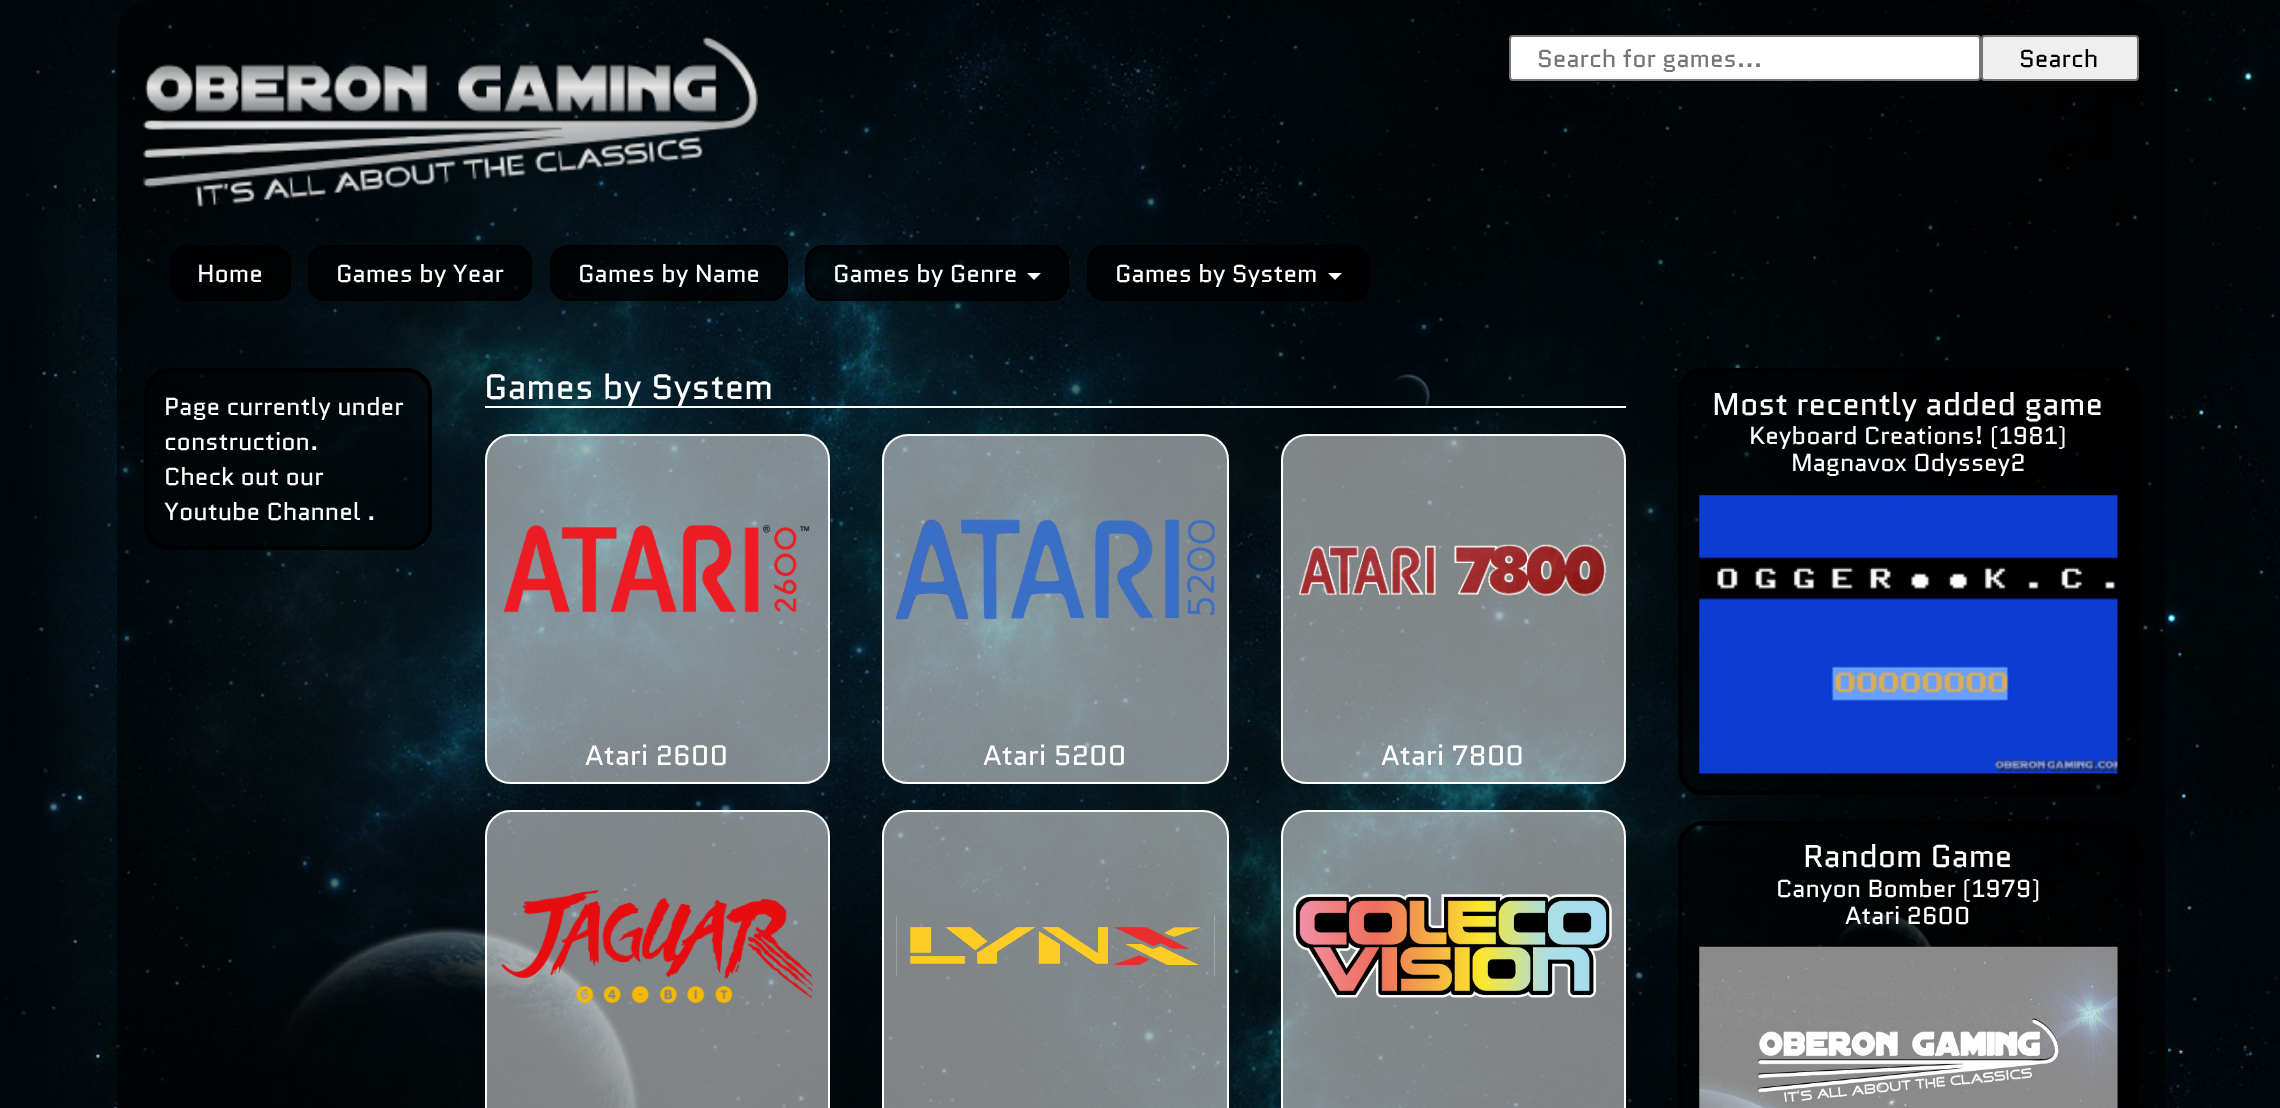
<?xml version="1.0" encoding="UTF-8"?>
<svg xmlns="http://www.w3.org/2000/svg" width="2280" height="1108">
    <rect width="100%" height="100%" fill="#FFFFFF"/>
    <image x="0" y="0" width="2280" height="1108" href="img_01.png"/>
    <rect x="117" y="0" width="2048" height="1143" rx="35" fill="#000000" fill-opacity="0.6"/>
    <image x="143" y="35" width="615" height="172" href="img_02.png"/>
    <rect x="1510" y="36" width="470" height="44" rx="3" fill="#FFFFFF" stroke="#767676" stroke-width="2"/>
    <text x="1537" y="67" font-family="Quantico" font-size="24.5" fill="#757575">Search for games...</text>
    <rect x="1982" y="36" width="156" height="44" rx="3" fill="#EFEFEF" stroke="#767676" stroke-width="2"/>
    <text x="2019" y="67" font-family="Quantico" font-size="24.5" fill="#000000">Search</text>
    <rect x="171" y="246" width="119" height="54" rx="17" fill="#000000" fill-opacity="0.8" stroke="#000000" stroke-width="2"/>
    <text x="197" y="282" font-family="Quantico" font-size="24.5" fill="#FFFFFF">Home</text>
    <rect x="309" y="246" width="222" height="54" rx="17" fill="#000000" fill-opacity="0.8" stroke="#000000" stroke-width="2"/>
    <text x="336" y="282" font-family="Quantico" font-size="24.5" fill="#FFFFFF">Games by Year</text>
    <rect x="551" y="246" width="236" height="54" rx="17" fill="#000000" fill-opacity="0.8" stroke="#000000" stroke-width="2"/>
    <text x="578" y="282" font-family="Quantico" font-size="24.5" fill="#FFFFFF">Games by Name</text>
    <rect x="806" y="246" width="262" height="54" rx="17" fill="#000000" fill-opacity="0.8" stroke="#000000" stroke-width="2"/>
    <text x="833" y="282" font-family="Quantico" font-size="24.5" fill="#FFFFFF">Games by Genre</text>
    <path d="M 1027 273 H 1041 L 1034 280 Z" fill="#FFFFFF"/>
    <rect x="1088" y="246" width="281" height="54" rx="17" fill="#000000" fill-opacity="0.8" stroke="#000000" stroke-width="2"/>
    <text x="1115" y="282" font-family="Quantico" font-size="24.5" fill="#FFFFFF">Games by System</text>
    <path d="M 1328 273 H 1342 L 1335 280 Z" fill="#FFFFFF"/>
    <rect x="146" y="370" width="284" height="178" rx="24" fill="#000000" fill-opacity="0.5" stroke="#000000" stroke-width="4"/>
    <text font-family="Quantico" font-size="24.5" fill="#FFFFFF">
        <tspan x="164" y="415">Page currently under</tspan>
        <tspan x="164" y="450">construction.</tspan>
        <tspan x="164" y="485">Check out our</tspan>
        <tspan x="164" y="520">Youtube Channel .</tspan>
    </text>
    <rect x="485" y="406" width="1141" height="2" fill="#FFFFFF"/>
    <text x="484" y="399" font-family="Quantico" font-size="35" fill="#FFFFFF">Games by System</text>
    <rect x="486" y="435" width="343" height="348" rx="25" fill="#FFFFFF" fill-opacity="0.5" stroke="#FFFFFF" stroke-width="2"/>
    <image x="503" y="524" width="307" height="89" href="img_03.png"/>
    <text x="585" y="765" font-family="Quantico" font-size="28" fill="#FFFFFF">Atari 2600</text>
    <rect x="883" y="435" width="345" height="348" rx="25" fill="#FFFFFF" fill-opacity="0.5" stroke="#FFFFFF" stroke-width="2"/>
    <image x="896" y="519" width="319" height="101" href="img_04.png"/>
    <text x="983" y="765" font-family="Quantico" font-size="28" fill="#FFFFFF">Atari 5200</text>
    <rect x="1282" y="435" width="343" height="348" rx="25" fill="#FFFFFF" fill-opacity="0.5" stroke="#FFFFFF" stroke-width="2"/>
    <image x="1298" y="539" width="314" height="57" href="img_05.png"/>
    <text x="1381" y="765" font-family="Quantico" font-size="28" fill="#FFFFFF">Atari 7800</text>
    <rect x="486" y="811" width="343" height="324" rx="25" fill="#FFFFFF" fill-opacity="0.5" stroke="#FFFFFF" stroke-width="2"/>
    <image x="501" y="890" width="312" height="114" href="img_06.png"/>
    <rect x="883" y="811" width="345" height="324" rx="25" fill="#FFFFFF" fill-opacity="0.5" stroke="#FFFFFF" stroke-width="2"/>
    <image x="896" y="915" width="319" height="62" href="img_07.png"/>
    <rect x="1282" y="811" width="343" height="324" rx="25" fill="#FFFFFF" fill-opacity="0.5" stroke="#FFFFFF" stroke-width="2"/>
    <image x="1293" y="894" width="319" height="104" href="img_08.png"/>
    <rect x="1680" y="370" width="457" height="423" rx="24" fill="#000000" fill-opacity="0.5" stroke="#000000" stroke-width="4"/>
    <text x="1712" y="415" font-family="Quantico" font-size="31.5" fill="#FFFFFF">Most recently added game</text>
    <text x="1749" y="444" font-family="Quantico" font-size="24.5" fill="#FFFFFF">Keyboard Creations! (1981)</text>
    <text x="1791" y="471" font-family="Quantico" font-size="24.5" fill="#FFFFFF">Magnavox Odyssey2</text>
    <image x="1699" y="495" width="419" height="279" href="img_09.png"/>
    <rect x="1680" y="823" width="457" height="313" rx="24" fill="#000000" fill-opacity="0.5" stroke="#000000" stroke-width="4"/>
    <text x="1803" y="867" font-family="Quantico" font-size="31.5" fill="#FFFFFF">Random Game</text>
    <text x="1776" y="897" font-family="Quantico" font-size="24.5" fill="#FFFFFF">Canyon Bomber (1979)</text>
    <text x="1845" y="924" font-family="Quantico" font-size="24.5" fill="#FFFFFF">Atari 2600</text>
    <image x="1699" y="946" width="419" height="162" href="img_10.png"/>
</svg>
